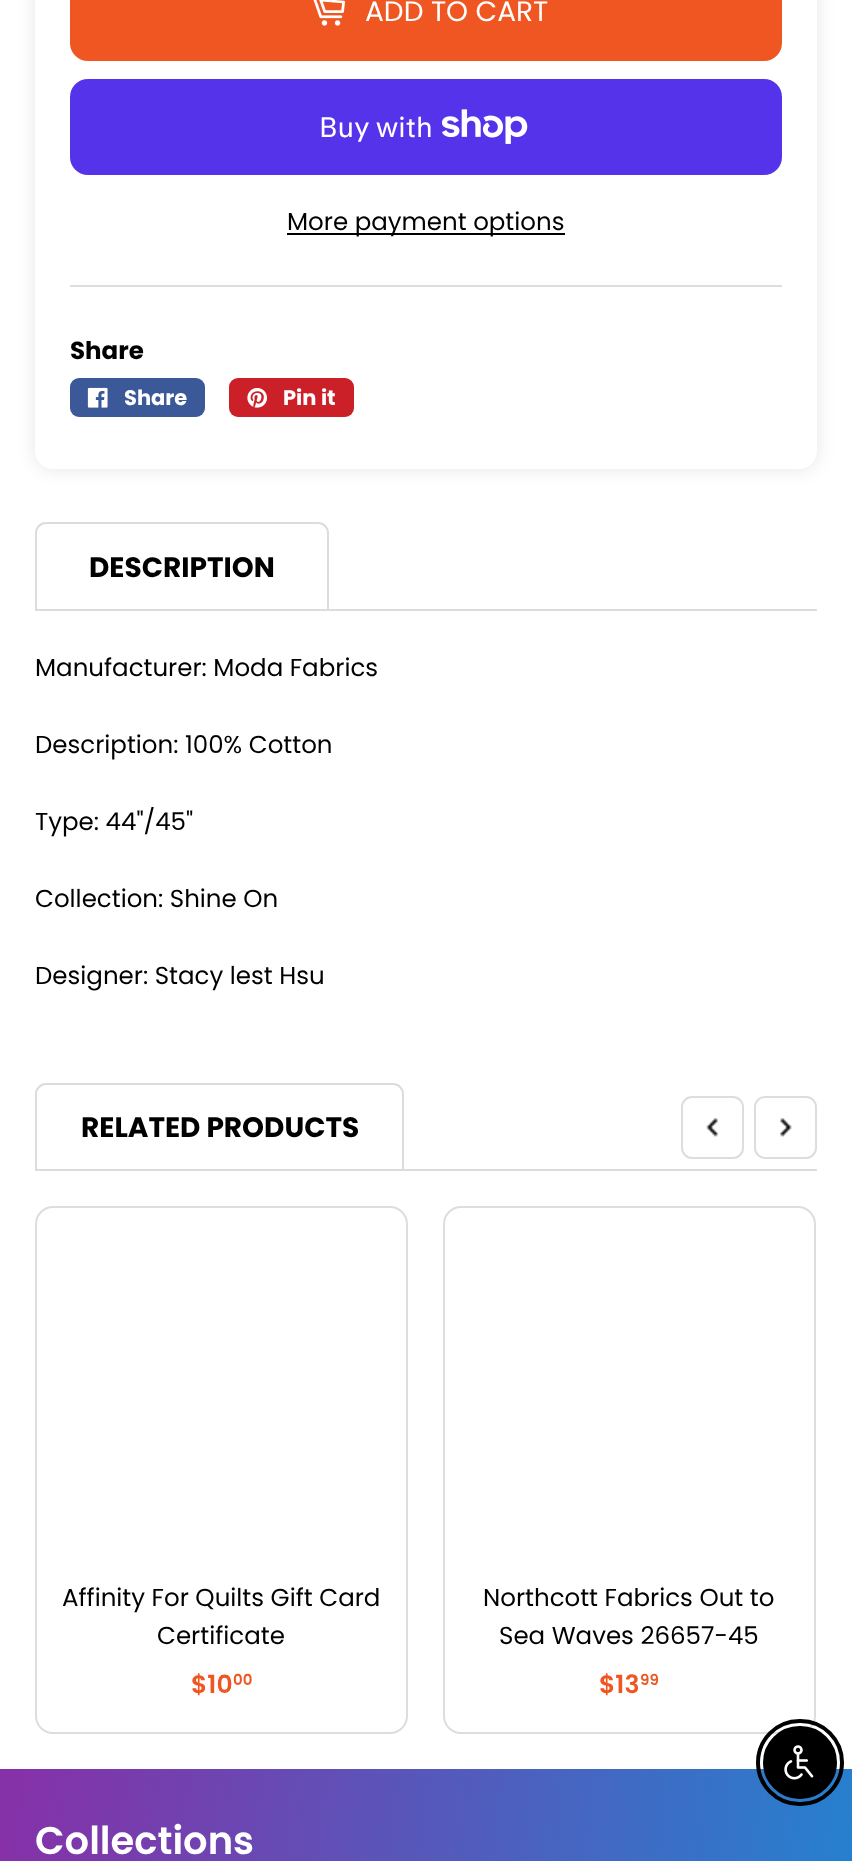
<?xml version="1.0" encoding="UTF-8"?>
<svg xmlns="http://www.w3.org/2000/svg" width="852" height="1861">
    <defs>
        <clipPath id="clip1"><path d="M 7 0 H 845 V 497 H 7 Z M 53 -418 H 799 C 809 -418 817 -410 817 -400 V 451 C 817 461 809 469 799 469 H 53 C 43 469 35 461 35 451 V -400 C 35 -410 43 -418 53 -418 Z" clip-rule="evenodd"/></clipPath>
        <filter id="blur1" x="-50%" y="-200%" width="200%" height="500%"><feGaussianBlur stdDeviation="9"/></filter>
        <linearGradient id="g1" gradientUnits="userSpaceOnUse" x1="-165" y1="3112" x2="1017" y2="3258"><stop offset="0" stop-color="#8730A7"/><stop offset="1" stop-color="#009FDE"/></linearGradient>
    </defs>
    <rect width="100%" height="100%" fill="#FFFFFF"/>
    <g clip-path="url(#clip1)">
        <rect x="35" y="-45" width="782" height="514" rx="18" fill="#000000" fill-opacity="0.1" filter="url(#blur1)"/>
    </g>
    <rect x="70" y="-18" width="712" height="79" rx="18" fill="#F05622"/>
    <image x="313" y="0" width="32" height="26" href="img_01.png"/>
    <text x="365" y="21" font-family="Poppins" font-size="28" fill="#FFFFFF">ADD TO CART</text>
    <rect x="70" y="79" width="712" height="96" rx="18" fill="#5433EB"/>
    <text x="319" y="137" font-family="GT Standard" font-size="28" fill="#FFFFFF">Buy with</text>
    <image x="442" y="109" width="86" height="35" href="img_02.png"/>
    <rect x="287" y="233" width="278" height="2" fill="#000000"/>
    <text x="287" y="230" font-family="Poppins" font-size="24.5" fill="#000000">More payment options</text>
    <rect x="70" y="285" width="712" height="2" fill="#DDDDDD"/>
    <text x="70" y="359" font-family="Poppins" font-size="24.5" font-weight="700" fill="#000000">Share</text>
    <rect x="70" y="378" width="135" height="39" rx="9" fill="#3B5998"/>
    <image x="87" y="387" width="21" height="21" href="img_03.png"/>
    <text x="124" y="405" font-family="Poppins" font-size="21" font-weight="700" fill="#FFFFFF">Share</text>
    <rect x="229" y="378" width="125" height="39" rx="9" fill="#CB2027"/>
    <image x="247" y="388" width="20" height="20" href="img_04.png"/>
    <text x="283" y="405" font-family="Poppins" font-size="21" font-weight="700" fill="#FFFFFF">Pin it</text>
    <rect x="329" y="609" width="488" height="2" fill="#DCDCDC"/>
    <path d="M 46 523 H 318 C 323.5 523 328 527.5 328 533 V 610 H 36 V 533 C 36 527.5 40.5 523 46 523 Z" fill="none" stroke="#DCDCDC" stroke-width="2"/>
    <text x="89" y="577" font-family="Poppins" font-size="28" font-weight="700" fill="#000000">DESCRIPTION</text>
    <text x="35" y="676" font-family="Poppins" font-size="24.5" fill="#000000">Manufacturer: Moda Fabrics</text>
    <text x="35" y="753" font-family="Poppins" font-size="24.5" fill="#000000">Description: 100% Cotton</text>
    <text x="35" y="830" font-family="Poppins" font-size="24.5" fill="#000000">Type: 44"/45"</text>
    <text x="35" y="907" font-family="Poppins" font-size="24.5" fill="#000000">Collection: Shine On</text>
    <text x="35" y="984" font-family="Poppins" font-size="24.5" fill="#000000">Designer: Stacy lest Hsu</text>
    <rect x="404" y="1169" width="413" height="2" fill="#DCDCDC"/>
    <path d="M 46 1084 H 393 C 398.5 1084 403 1088.5 403 1094 V 1170 H 36 V 1094 C 36 1088.5 40.5 1084 46 1084 Z" fill="none" stroke="#DCDCDC" stroke-width="2"/>
    <text x="81" y="1137" font-family="Poppins" font-size="28" font-weight="700" fill="#000000">RELATED PRODUCTS</text>
    <image x="706" y="1118" width="12" height="19" href="img_05.png"/>
    <rect x="682" y="1097" width="61" height="61" rx="10" fill="none" stroke="#DDDDDD" stroke-width="2"/>
    <image x="780" y="1118" width="12" height="19" href="img_06.png"/>
    <rect x="755" y="1097" width="61" height="61" rx="10" fill="none" stroke="#DDDDDD" stroke-width="2"/>
    <rect x="36" y="1207" width="371" height="526" rx="17" fill="none" stroke="#DDDDDD" stroke-width="2"/>
    <text x="62" y="1606" font-family="Poppins" font-size="24.5" fill="#000000">Affinity For Quilts Gift Card</text>
    <text x="157" y="1644" font-family="Poppins" font-size="24.5" fill="#000000">Certificate</text>
    <text x="191" y="1693" font-family="Poppins" font-size="25" font-weight="600" fill="#F05622">$10</text>
    <text x="233" y="1685" font-family="Poppins" font-size="15" font-weight="600" fill="#F05622">00</text>
    <rect x="444" y="1207" width="371" height="526" rx="17" fill="none" stroke="#DDDDDD" stroke-width="2"/>
    <text x="483" y="1606" font-family="Poppins" font-size="24.5" fill="#000000">Northcott Fabrics Out to</text>
    <text x="499" y="1644" font-family="Poppins" font-size="24.5" fill="#000000">Sea Waves 26657-45</text>
    <text x="599" y="1693" font-family="Poppins" font-size="25" font-weight="600" fill="#F05622">$13</text>
    <text x="640" y="1685" font-family="Poppins" font-size="15" font-weight="600" fill="#F05622">99</text>
    <rect x="0" y="1769" width="852" height="92" fill="url(#g1)"/>
    <rect x="758" y="1721" width="84" height="83" rx="41.5" fill="none" stroke="#000000" stroke-width="4"/>
    <rect x="764" y="1727" width="72" height="71" rx="35.5" fill="#000000" stroke="#000000" stroke-width="2"/>
    <image x="784" y="1745" width="30" height="35" href="img_07.png"/>
    <text x="35" y="1854" font-family="Poppins" font-size="38.5" font-weight="600" fill="#FFFFFF">Collections</text>
</svg>
